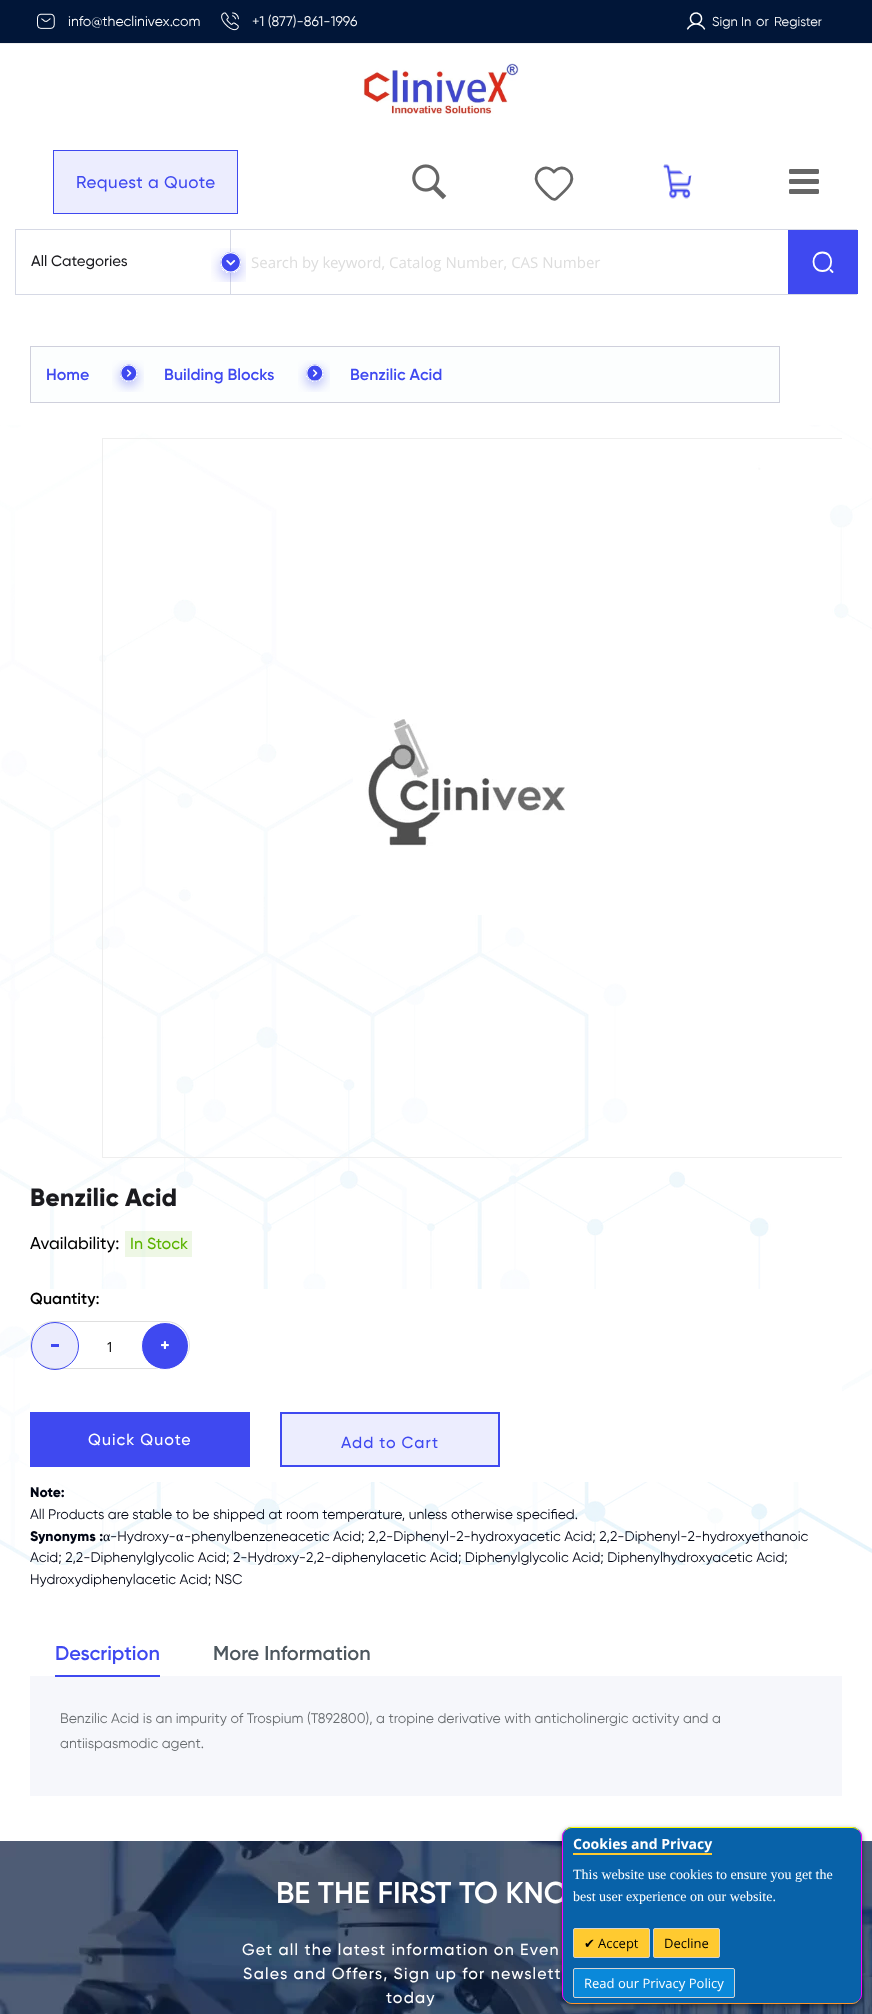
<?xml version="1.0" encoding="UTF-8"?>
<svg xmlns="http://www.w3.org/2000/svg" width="872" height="2014">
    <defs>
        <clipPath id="clip1"><rect x="30" y="438" width="812" height="720"/></clipPath>
        <filter id="blur1" x="-50%" y="-200%" width="200%" height="500%"><feGaussianBlur stdDeviation="2.5"/></filter>
    </defs>
    <rect width="100%" height="100%" fill="#FFFFFF"/>
    <rect x="0" y="0" width="872" height="43" fill="#011638"/>
    <rect x="0" y="43" width="872" height="1" fill="#EFEFEF"/>
    <image x="37" y="13" width="18" height="16" href="img_01.png"/>
    <text x="68" y="26" font-family="Gilroy" font-size="14" fill="#FFFFFF">info@theclinivex.com</text>
    <image x="221" y="12" width="18" height="19" href="img_02.png"/>
    <text x="252" y="26" font-family="Gilroy" font-size="14" fill="#FFFFFF">+1 (877)-861-1996</text>
    <image x="686" y="12" width="20" height="18" href="img_03.png"/>
    <text x="712" y="26" font-family="Gilroy" font-size="13" fill="#FFFFFF">Sign In</text>
    <text x="756" y="26" font-family="Gilroy" font-size="14" fill="#FFFFFF">or</text>
    <text x="774" y="26" font-family="Gilroy" font-size="13" fill="#FFFFFF">Register</text>
    <image x="363" y="63" width="156" height="51" href="img_04.png"/>
    <rect x="53.5" y="150.5" width="184" height="63" fill="#ECEDFE" stroke="#3F49F0"/>
    <text x="76" y="188" font-family="Gilroy" font-size="17" font-weight="500" letter-spacing="0.5" fill="#3F49F0">Request a Quote</text>
    <image x="412" y="164" width="35" height="36" href="img_05.png"/>
    <path d="M 556.5 198.5 C 553 201.5 550 197 548 195.5 C 544 191.5 539 187.5 537 182.5 C 532.5 171.5 546 162.5 554 172 C 561.5 162.5 575.5 171.5 571 182.5 C 568 189 561 194 556.5 198.5 Z" fill="none" stroke="#666666" stroke-width="2.8" stroke-linecap="round" stroke-linejoin="round"/>
    <image x="663" y="164" width="29" height="35" href="img_06.png"/>
    <rect x="679" y="152" width="20" height="24" rx="10" fill="#FFFFFF"/>
    <image x="789" y="169" width="30" height="25" href="img_07.png"/>
    <rect x="15.5" y="229.5" width="841" height="65" fill="none" stroke="#D6D9E5"/>
    <text x="31" y="266" font-family="Gilroy" font-size="15" font-weight="500" fill="#1B1B1F">All Categories</text>
    <rect x="230" y="230" width="1" height="64" fill="#D6D9E5"/>
    <image x="211" y="248" width="35" height="34" href="img_08.png"/>
    <text x="251" y="268" font-family="Open Sans" font-size="15" fill="#DDDDDD">Search by keyword, Catalog Number, CAS Number</text>
    <rect x="788" y="230" width="70" height="64" fill="#3F49F0"/>
    <path d="M 822.5 271 C 834 271 834 252.5 822.5 252.5 C 810.5 252.5 810.5 271 822.5 271 Z M 832.5 272 L 830.5 270" fill="none" stroke="#FFFFFF" stroke-width="1.8" stroke-linecap="round" stroke-linejoin="round"/>
    <image x="0" y="425" width="872" height="1140" href="img_09.png"/>
    <rect x="30.5" y="346.5" width="749" height="56" fill="#FCFEFE" stroke="#CFD0DC"/>
    <text x="46" y="380" font-family="Gilroy" font-size="16" font-weight="600" fill="#3F49F0">Home</text>
    <image x="112" y="360" width="32" height="32" href="img_10.png"/>
    <text x="164" y="380" font-family="Gilroy" font-size="16" font-weight="600" fill="#3F49F0">Building Blocks</text>
    <image x="298" y="360" width="32" height="32" href="img_10.png"/>
    <text x="350" y="380" font-family="Gilroy" font-size="16" font-weight="600" fill="#3F49F0">Benzilic Acid</text>
    <g clip-path="url(#clip1)">
        <rect x="102.5" y="438.5" width="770" height="719" fill="none" stroke="#EEEEEE"/>
    </g>
    <image x="353" y="718" width="212" height="197" href="img_11.png"/>
    <text x="30" y="1206" font-family="Gilroy" font-size="25" font-weight="800" fill="#1B1B1F">Benzilic Acid</text>
    <text x="30" y="1249" font-family="Gilroy" font-size="17" font-weight="500" fill="#000000">Availability:</text>
    <rect x="125" y="1231" width="67" height="26" fill="#5BB300" fill-opacity="0.1"/>
    <text x="130" y="1249" font-family="Gilroy" font-size="16" font-weight="500" fill="#5BB300">In Stock</text>
    <rect x="30" y="1289" width="812" height="193" fill="#FFFFFF"/>
    <text x="30" y="1304" font-family="Gilroy" font-size="16" font-weight="600" fill="#000000">Quantity:</text>
    <rect x="30.5" y="1321.5" width="159" height="47" rx="23.5" fill="none" stroke="#DFDFDF"/>
    <circle cx="55" cy="1346" r="23.5" fill="#3F49F0" fill-opacity="0.1" stroke="#3F49F0"/>
    <rect x="51" y="1344" width="8" height="3" fill="#3F49F0"/>
    <text x="106" y="1352" font-family="Open Sans" font-size="14" fill="#000000">1</text>
    <circle cx="165" cy="1346" r="23.5" fill="#3F49F0" stroke="#FFFFFF"/>
    <image x="161" y="1341" width="8" height="8" href="img_12.png"/>
    <rect x="30" y="1412" width="220" height="55" fill="#3F49F0"/>
    <text x="88" y="1445" font-family="Gilroy" font-size="16" font-weight="500" letter-spacing="1" fill="#FFFFFF">Quick Quote</text>
    <rect x="281" y="1413" width="218" height="53" fill="#ECEDFE" stroke="#3F49F0" stroke-width="2"/>
    <text x="341" y="1448" font-family="Gilroy" font-size="16" font-weight="500" letter-spacing="1" fill="#3F49F0">Add to Cart</text>
    <text x="30" y="1497" font-family="Gilroy" font-size="14" font-weight="800" fill="#000514">Note:</text>
    <text x="30" y="1519" font-family="Gilroy" font-size="14" fill="#000514">All Products are stable to be shipped at room temperature, unless otherwise specified.</text>
    <text x="30" y="1541" font-family="Gilroy" font-size="14" font-weight="800" fill="#000514">Synonyms :</text>
    <text x="103" y="1541" font-family="Liberation Serif" font-size="14" fill="#000514">α</text>
    <text x="110" y="1541" font-family="Gilroy" font-size="14" fill="#000514">-Hydroxy-</text>
    <text x="176" y="1541" font-family="Liberation Serif" font-size="14" fill="#000514">α</text>
    <text x="184" y="1541" font-family="Gilroy" font-size="14" fill="#000514">-phenylbenzeneacetic Acid; 2,2-Diphenyl-2-hydroxyacetic Acid; 2,2-Diphenyl-2-hydroxyethanoic</text>
    <text font-family="Gilroy" font-size="14" fill="#000514">
        <tspan x="30" y="1562">Acid; 2,2-Diphenylglycolic Acid; 2-Hydroxy-2,2-diphenylacetic Acid; Diphenylglycolic Acid; Diphenylhydroxyacetic Acid;</tspan>
        <tspan x="30" y="1584">Hydroxydiphenylacetic Acid; NSC</tspan>
    </text>
    <text x="55" y="1660" font-family="Gilroy" font-size="20" font-weight="600" fill="#3F49F0">Description</text>
    <rect x="30" y="1676" width="812" height="120" fill="#F6F7FB"/>
    <rect x="55" y="1675" width="105" height="2" fill="#3F49F0"/>
    <text x="213" y="1660" font-family="Gilroy" font-size="20" font-weight="600" fill="#4D575E">More Information</text>
    <text font-family="Gilroy" font-size="14" fill="#686C6F">
        <tspan x="60" y="1723">Benzilic Acid is an impurity of Trospium (T892800), a tropine derivative with anticholinergic activity and a</tspan>
        <tspan x="60" y="1748">antiispasmodic agent.</tspan>
    </text>
    <image x="0" y="1841" width="872" height="173" href="img_13.png"/>
    <text x="276" y="1903" font-family="Gilroy" font-size="30" font-weight="600" fill="#FFFFFF">BE THE FIRST TO KNO</text>
    <text x="242" y="1955" font-family="Gilroy" font-size="16" font-weight="500" letter-spacing="1.2" fill="#FFFFFF">Get all the latest information on Even</text>
    <text x="243" y="1979" font-family="Gilroy" font-size="16" font-weight="500" letter-spacing="1.2" fill="#FFFFFF">Sales and Offers, Sign up for newslett</text>
    <text x="386" y="2003" font-family="Gilroy" font-size="16" font-weight="500" letter-spacing="1.2" fill="#FFFFFF">today</text>
    <rect x="562" y="1829" width="300" height="177" rx="10" fill="#000000" fill-opacity="0.47" filter="url(#blur1)"/>
    <rect x="562" y="1827" width="300" height="177" rx="10" fill="#0862A9"/>
    <path d="M 565.5 1830.5 C 567 1828.5 569.5 1827.5 572 1827.5 H 852 C 854.5 1827.5 857 1828.5 858.5 1830.5" fill="none" stroke="#FFFF00"/>
    <path d="M 858.5 1830.5 C 860.5 1832 861.5 1834.5 861.5 1837 V 1994 C 861.5 1996.5 860.5 1999 858.5 2000.5" fill="none" stroke="#FF00FF"/>
    <path d="M 858.5 2000.5 C 857 2002.5 854.5 2003.5 852 2003.5 H 572 C 569.5 2003.5 567 2002.5 565.5 2000.5" fill="none" stroke="#FF952B"/>
    <path d="M 565.5 2000.5 C 563.5 1999 562.5 1996.5 562.5 1994 V 1837 C 562.5 1834.5 563.5 1832 565.5 1830.5" fill="none" stroke="#FF00FF"/>
    <text x="573" y="1849" font-family="Open Sans" font-size="14" font-weight="700" fill="#FFFFFF">Cookies and Privacy</text>
    <rect x="573" y="1853" width="139" height="2" fill="#FFCA30"/>
    <text font-family="Liberation Serif" font-size="14" fill="#FFFFFF">
        <tspan x="573" y="1879">This website use cookies to ensure you get the</tspan>
        <tspan x="573" y="1901">best user experience on our website.</tspan>
    </text>
    <rect x="573.5" y="1928.5" width="76" height="29" rx="1.5" fill="#FFCA30" stroke="#D4D4D4"/>
    <text x="584" y="1948" font-family="DejaVu Sans" font-size="13" fill="#000000">✔</text>
    <text x="598" y="1948" font-family="Open Sans" font-size="13" fill="#000000">Accept</text>
    <rect x="653.5" y="1928.5" width="66" height="29" rx="1.5" fill="#FFCA30" stroke="#D4D4D4"/>
    <text x="664" y="1948" font-family="Open Sans" font-size="13" fill="#000000">Decline</text>
    <rect x="573.5" y="1968.5" width="161" height="29" rx="1.5" fill="#0A89DA" stroke="#D4D4D4"/>
    <text x="584" y="1988" font-family="Open Sans" font-size="13" fill="#FFFFFF">Read our Privacy Policy</text>
</svg>
